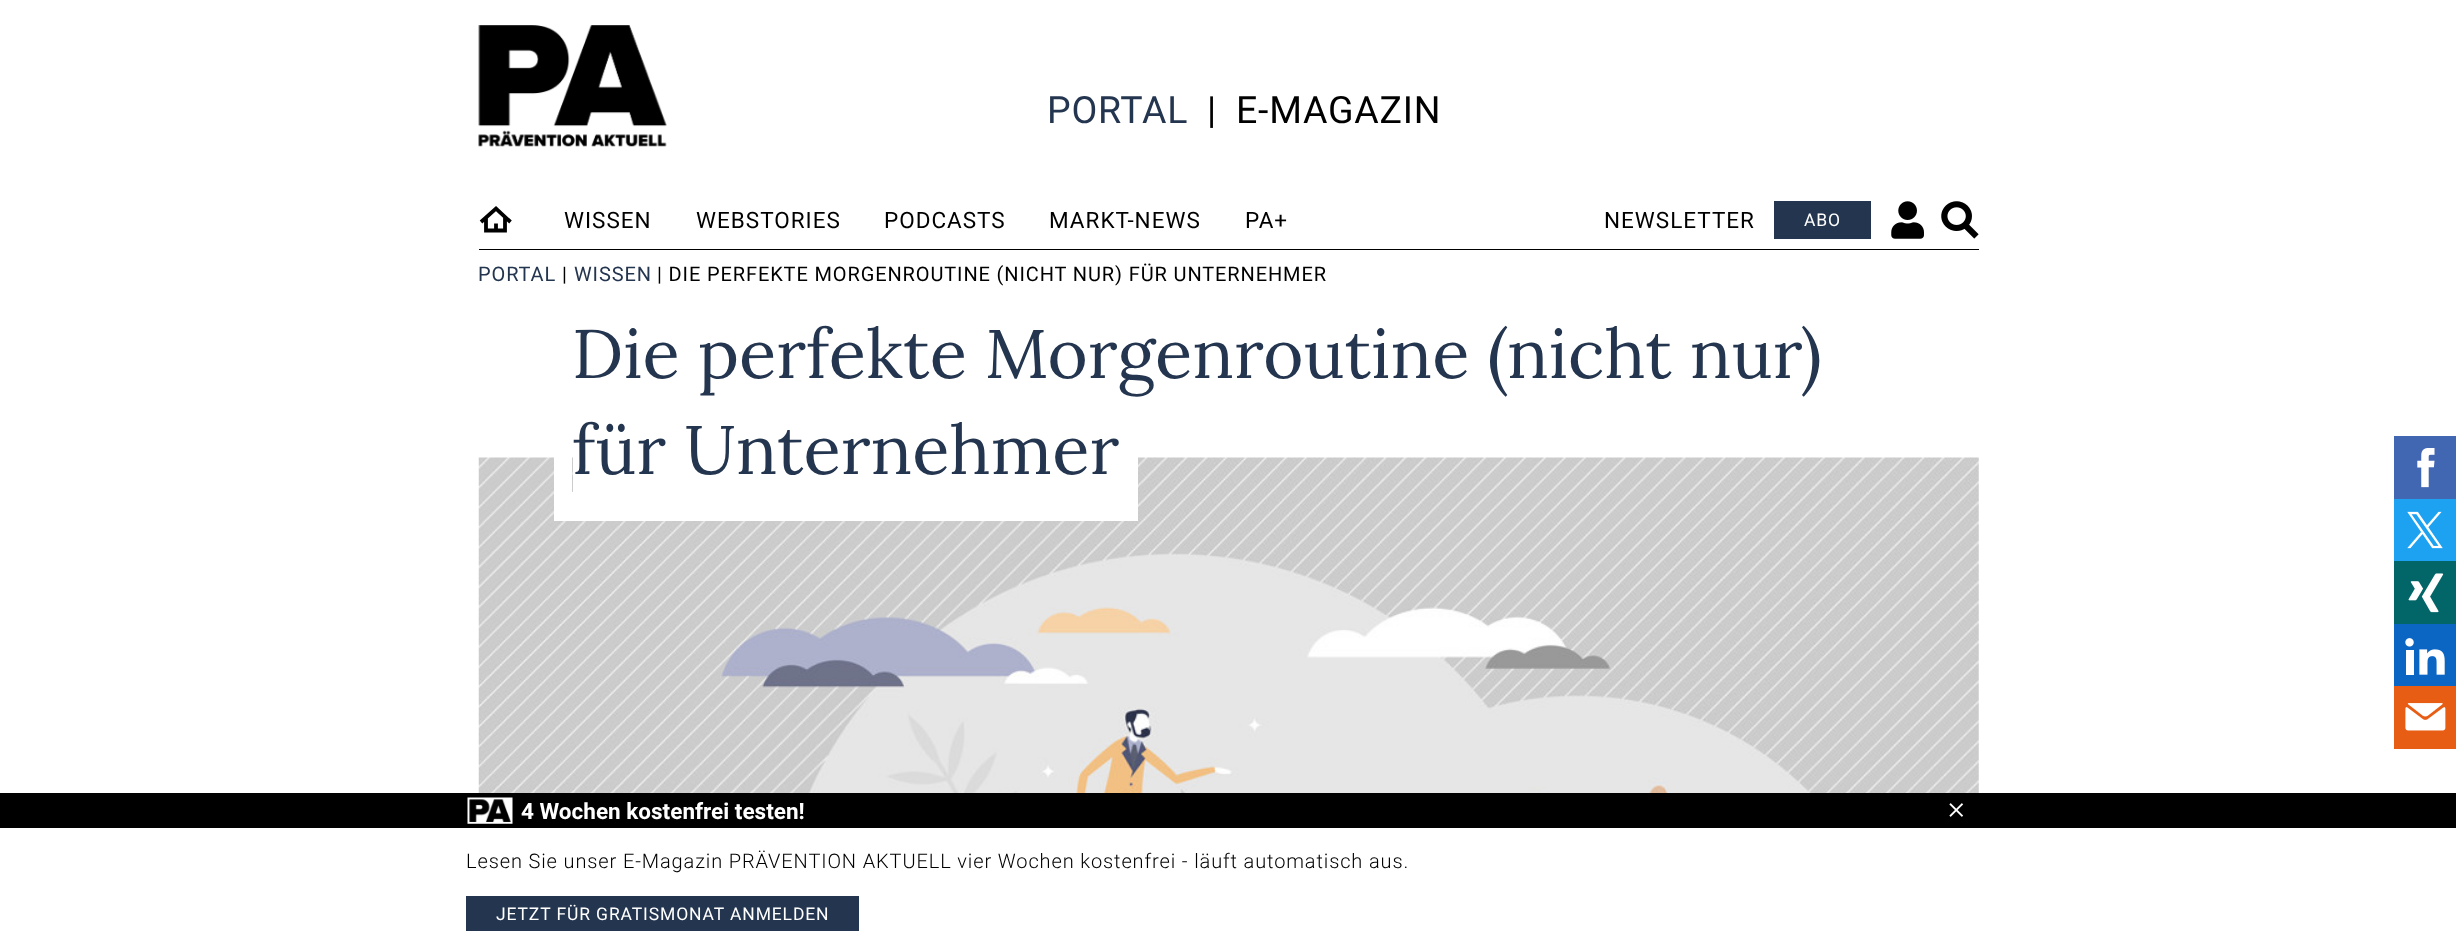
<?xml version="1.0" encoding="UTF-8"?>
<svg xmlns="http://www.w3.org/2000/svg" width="2456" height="952">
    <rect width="100%" height="100%" fill="#FFFFFF"/>
    <image x="478" y="25" width="189" height="122" href="img_01.png"/>
    <text x="1047" y="123" font-family="Roboto" font-size="37.5" letter-spacing="0.75" fill="#24354F">PORTAL</text>
    <text x="1207" y="123" font-family="Roboto" font-size="37.5" letter-spacing="0.75" fill="#000000">|</text>
    <text x="1236" y="123" font-family="Roboto" font-size="37.5" letter-spacing="0.75" fill="#000000">E-MAGAZIN</text>
    <rect x="479" y="249" width="1500" height="1" fill="#000000"/>
    <path d="M 510.5 222 L 496 208.5 L 481 222 M 486 218.5 V 230.5 H 505 V 217 M 496 223.5 V 229.5" fill="none" stroke="#000000" stroke-width="3.8"/>
    <text x="564" y="228" font-family="Roboto" font-size="22.5" letter-spacing="1" fill="#000000">WISSEN</text>
    <text x="696" y="228" font-family="Roboto" font-size="22.5" letter-spacing="1" fill="#000000">WEBSTORIES</text>
    <text x="884" y="228" font-family="Roboto" font-size="22.5" letter-spacing="1" fill="#000000">PODCASTS</text>
    <text x="1049" y="228" font-family="Roboto" font-size="22.5" letter-spacing="1" fill="#000000">MARKT-NEWS</text>
    <text x="1245" y="228" font-family="Roboto" font-size="22.5" letter-spacing="1" fill="#000000">PA+</text>
    <text x="1604" y="228" font-family="Roboto" font-size="22.5" letter-spacing="1" fill="#000000">NEWSLETTER</text>
    <rect x="1774" y="201" width="97" height="38" fill="#24354F"/>
    <text x="1804" y="226" font-family="Roboto" font-size="17.5" letter-spacing="0.88" fill="#FFFFFF">ABO</text>
    <image x="1891" y="201" width="33" height="38" href="img_02.png"/>
    <image x="1941" y="201" width="38" height="38" href="img_03.png"/>
    <text x="478" y="281" font-family="Roboto" font-size="20" letter-spacing="0.88" fill="#24354F">PORTAL</text>
    <text x="562" y="281" font-family="Roboto" font-size="20" letter-spacing="0.88" fill="#000000">|</text>
    <text x="574" y="281" font-family="Roboto" font-size="20" letter-spacing="0.88" fill="#24354F">WISSEN</text>
    <text x="657" y="281" font-family="Roboto" font-size="20" letter-spacing="0.88" fill="#000000">| DIE PERFEKTE MORGENROUTINE (NICHT NUR) FÜR UNTERNEHMER</text>
    <image x="478" y="457" width="1501" height="336" href="img_04.png"/>
    <path d="M 554 396 V 521 H 1138 V 396 Z M 572 405 V 492 H 1119 V 405 Z" fill="#FFFFFF" fill-rule="evenodd"/>
    <text x="572" y="378" font-family="Lora" font-size="68.75" fill="#24354F">Die perfekte Morgenroutine (nicht nur)</text>
    <rect x="573" y="457" width="546" height="35" fill="#FFFFFF"/>
    <text x="572" y="474" font-family="Lora" font-size="68.75" fill="#24354F">für Unternehmer</text>
    <rect x="2394" y="436" width="62" height="63" fill="#4267B2"/>
    <image x="2417" y="448" width="18" height="40" href="img_05.png"/>
    <rect x="2394" y="499" width="62" height="62" fill="#1DA1F1"/>
    <image x="2407" y="511" width="36" height="38" href="img_06.png"/>
    <rect x="2394" y="561" width="62" height="63" fill="#026567"/>
    <image x="2408" y="573" width="36" height="40" href="img_07.png"/>
    <rect x="2394" y="624" width="62" height="62" fill="#0A66C2"/>
    <image x="2405" y="638" width="40" height="37" href="img_08.png"/>
    <rect x="2394" y="686" width="62" height="63" fill="#E75D14"/>
    <image x="2405" y="703" width="41" height="28" href="img_09.png"/>
    <rect x="0" y="793" width="2456" height="35" fill="#000000"/>
    <image x="467" y="797" width="46" height="27" href="img_10.png"/>
    <text x="521" y="819" font-family="Roboto" font-size="22.5" font-weight="700" fill="#FFFFFF">4 Wochen kostenfrei testen!</text>
    <image x="1949" y="803" width="15" height="14" href="img_11.png"/>
    <text x="466" y="868" font-family="Roboto" font-size="20" font-weight="300" letter-spacing="0.88" fill="#000000">Lesen Sie unser E-Magazin PRÄVENTION AKTUELL vier Wochen kostenfrei - läuft automatisch aus.</text>
    <rect x="466" y="896" width="393" height="35" fill="#24354F"/>
    <text x="496" y="920" font-family="Roboto" font-size="17.5" letter-spacing="0.88" fill="#FFFFFF">JETZT FÜR GRATISMONAT ANMELDEN</text>
</svg>
